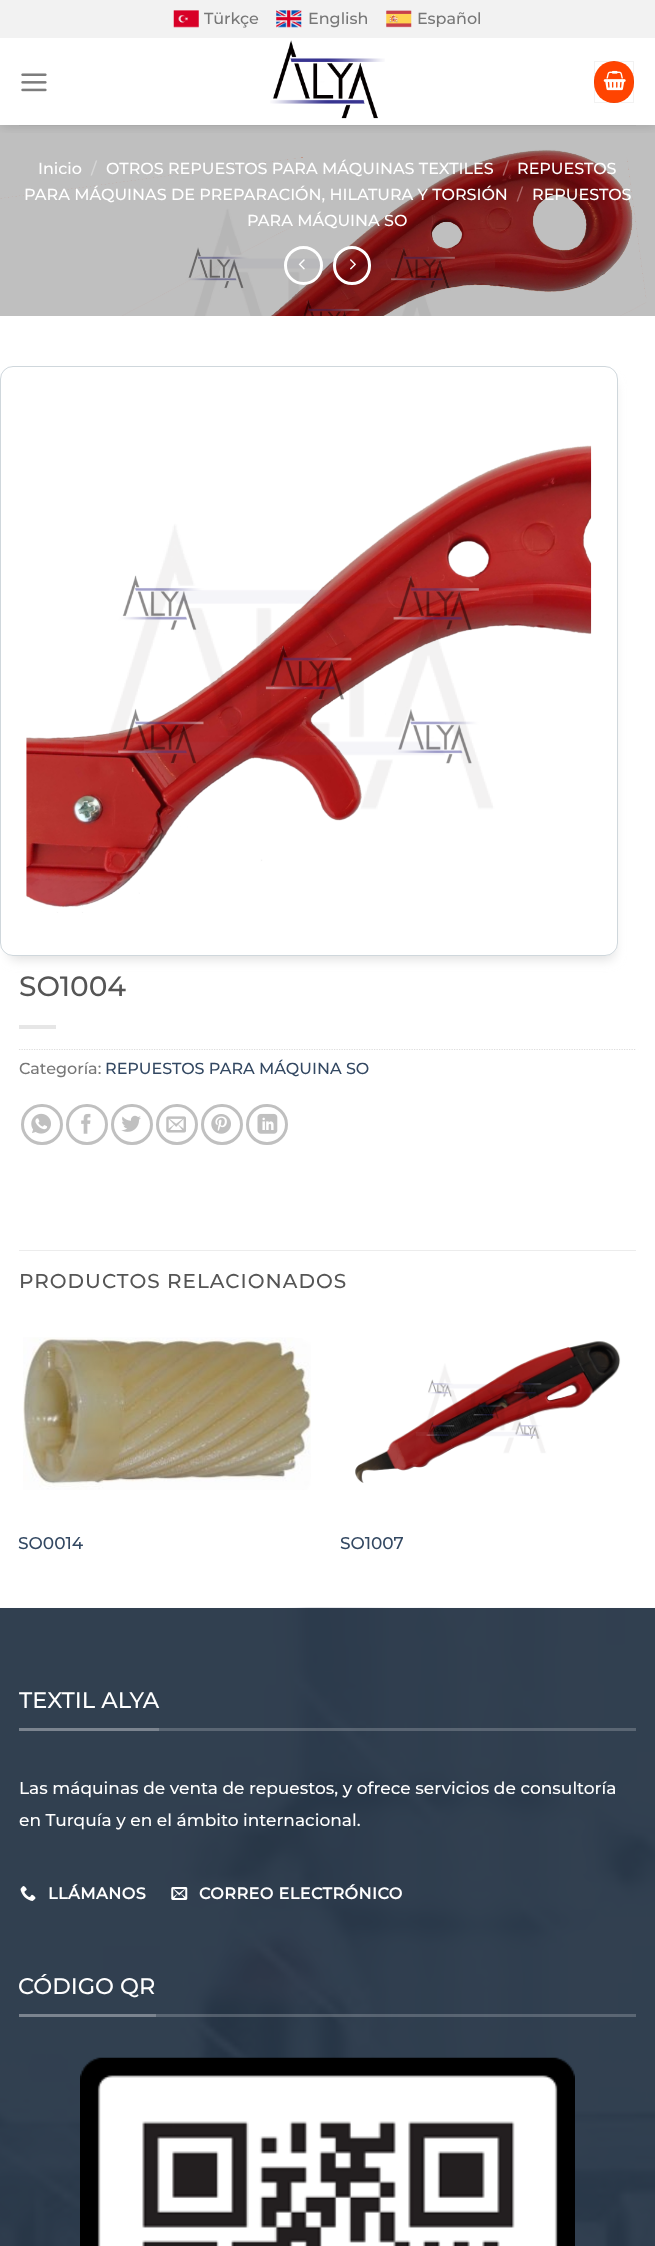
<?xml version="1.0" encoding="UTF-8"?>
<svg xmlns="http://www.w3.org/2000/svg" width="655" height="2246">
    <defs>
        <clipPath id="clip1"><rect x="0" y="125" width="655" height="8"/></clipPath>
        <filter id="blur1" x="-50%" y="-200%" width="200%" height="500%"><feGaussianBlur stdDeviation="6"/></filter>
        <clipPath id="clip2"><path d="M 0 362 H 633 V 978 H 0 Z M 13 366 H 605 C 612 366 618 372 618 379 V 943 C 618 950 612 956 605 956 H 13 C 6 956 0 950 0 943 V 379 C 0 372 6 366 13 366 Z" clip-rule="evenodd"/></clipPath>
    </defs>
    <rect width="100%" height="100%" fill="#FFFFFF"/>
    <rect x="0" y="157" width="647" height="159" fill="#BF3301"/>
    <image x="0" y="125" width="655" height="191" href="img_07.png"/>
    <g clip-path="url(#clip1)">
        <rect x="1" y="1" width="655" height="125" fill="#000000" fill-opacity="0.15" filter="url(#blur1)"/>
    </g>
    <rect x="0" y="0" width="655" height="38" fill="#F2F2F2"/>
    <image x="173" y="10" width="26" height="18" href="img_01.png"/>
    <text x="204" y="24" font-family="Montserrat" font-size="16" font-weight="100" fill="#777777">Türkçe</text>
    <image x="276" y="10" width="26" height="18" href="img_02.png"/>
    <text x="308" y="24" font-family="Montserrat" font-size="16" font-weight="100" fill="#777777">English</text>
    <image x="386" y="10" width="26" height="18" href="img_03.png"/>
    <text x="417" y="24" font-family="Montserrat" font-size="16" font-weight="100" fill="#777777">Español</text>
    <image x="21" y="73" width="26" height="19" href="img_04.png"/>
    <image x="270" y="40" width="115" height="79" href="img_05.png"/>
    <rect x="594" y="61" width="40" height="42" rx="20" fill="#FF4401"/>
    <rect x="594.5" y="61.5" width="39" height="41" fill="none" stroke="#000000" stroke-opacity="0.05"/>
    <image x="603" y="70" width="23" height="21" href="img_06.png"/>
    <rect x="19" y="125" width="617" height="1" fill="#AAAAAA"/>
    <text x="38" y="174" font-family="Montserrat" font-size="16" font-weight="100" fill="#FFFFFF">Inicio</text>
    <text x="91" y="174" font-family="Montserrat" font-size="16" font-weight="100" fill="#D6D6D6">/</text>
    <text x="106" y="174" font-family="Montserrat" font-size="16" font-weight="100" fill="#FFFFFF">OTROS REPUESTOS PARA MÁQUINAS TEXTILES</text>
    <text x="503" y="174" font-family="Montserrat" font-size="16" font-weight="100" fill="#AE6868">/</text>
    <text x="517" y="174" font-family="Montserrat" font-size="16" font-weight="100" fill="#FFFFFF">REPUESTOS</text>
    <text x="24" y="200" font-family="Montserrat" font-size="16" font-weight="100" fill="#FFFFFF">PARA MÁQUINAS DE PREPARACIÓN, HILATURA Y TORSIÓN</text>
    <text x="517" y="200" font-family="Montserrat" font-size="16" font-weight="100" fill="#AE6868">/</text>
    <text x="532" y="200" font-family="Montserrat" font-size="16" font-weight="100" fill="#FFFFFF">REPUESTOS</text>
    <text x="247" y="226" font-family="Montserrat" font-size="16" font-weight="100" fill="#FFFFFF">PARA MÁQUINA SO</text>
    <circle cx="303.5" cy="265.5" r="18" fill="none" stroke="#FFFFFF" stroke-width="3"/>
    <image x="298" y="259" width="7" height="11" href="img_08.png"/>
    <rect x="334.5" y="247.5" width="35" height="36" rx="17.5" fill="none" stroke="#FFFFFF" stroke-width="3"/>
    <image x="350" y="259" width="6" height="11" href="img_09.png"/>
    <g clip-path="url(#clip2)">
        <rect x="9" y="381" width="605" height="578" rx="6" fill="#DEDEDE" filter="url(#blur1)"/>
    </g>
    <rect x="0.5" y="366.5" width="617" height="589" rx="12.5" fill="none" stroke="#1C415B" stroke-opacity="0.21"/>
    <image x="26" y="445" width="566" height="468" href="img_10.png"/>
    <text x="19" y="996" font-family="Montserrat" font-size="28" font-weight="100" fill="#555555">SO1004</text>
    <rect x="19" y="1025" width="37" height="4" fill="#E6E6E6"/>
    <path d="M 19 1049.5 H 636" fill="none" stroke="#DDDDDD" stroke-width="1.2" stroke-dasharray="1.25 1.25"/>
    <text x="19" y="1074" font-family="Montserrat" font-size="16" font-weight="100" fill="#777777">Categoría:</text>
    <text x="105" y="1074" font-family="Montserrat" font-size="16" font-weight="100" fill="#334862">REPUESTOS PARA MÁQUINA SO</text>
    <rect x="22.5" y="1105.5" width="39" height="38" rx="19" fill="none" stroke="#C0C0C0" stroke-width="3"/>
    <image x="31" y="1113" width="20" height="21" href="img_11.png"/>
    <rect x="67.5" y="1105.5" width="39" height="38" rx="19" fill="none" stroke="#C0C0C0" stroke-width="3"/>
    <image x="81" y="1113" width="10" height="21" href="img_12.png"/>
    <rect x="112.5" y="1105.5" width="39" height="38" rx="19" fill="none" stroke="#C0C0C0" stroke-width="3"/>
    <image x="121" y="1115" width="20" height="17" href="img_13.png"/>
    <rect x="157.5" y="1105.5" width="39" height="38" rx="19" fill="none" stroke="#C0C0C0" stroke-width="3"/>
    <image x="166" y="1116" width="20" height="17" href="img_14.png"/>
    <rect x="202.5" y="1105.5" width="39" height="38" rx="19" fill="none" stroke="#C0C0C0" stroke-width="3"/>
    <image x="211" y="1114" width="20" height="20" href="img_15.png"/>
    <rect x="247.5" y="1105.5" width="39" height="38" rx="19" fill="none" stroke="#C0C0C0" stroke-width="3"/>
    <image x="257" y="1113" width="21" height="21" href="img_16.png"/>
    <rect x="19" y="1250" width="617" height="1" fill="#ECECEC"/>
    <text x="19" y="1288" font-family="Montserrat" font-size="20" font-weight="100" letter-spacing="1" fill="#555555">PRODUCTOS RELACIONADOS</text>
    <image x="23" y="1337" width="288" height="153" href="img_17.png"/>
    <text x="18" y="1549" font-family="Montserrat" font-size="17" font-weight="100" fill="#334862">SO0014</text>
    <image x="355" y="1341" width="266" height="142" href="img_18.png"/>
    <text x="340" y="1549" font-family="Montserrat" font-size="17" font-weight="100" fill="#334862">SO1007</text>
    <image x="0" y="1607" width="655" height="639" href="img_19.png"/>
    <rect x="159" y="1728" width="477" height="3" fill="#FFFFFF" fill-opacity="0.2"/>
    <rect x="19" y="1728" width="140" height="3" fill="#7B848F"/>
    <text x="19" y="1708" font-family="Montserrat" font-size="22.5" font-weight="100" fill="#FFFFFF">TEXTIL ALYA</text>
    <text font-family="Montserrat" font-size="17" font-weight="100" fill="#FFFFFF">
        <tspan x="19" y="1794">Las máquinas de venta de repuestos, y ofrece servicios de consultoría</tspan>
        <tspan x="19" y="1826">en Turquía y en el ámbito internacional.</tspan>
    </text>
    <image x="20" y="1886" width="16" height="15" href="img_20.png"/>
    <text x="48" y="1899" font-family="Montserrat" font-size="16" font-weight="700" letter-spacing="0.5" fill="#FFFFFF">LLÁMANOS</text>
    <image x="171" y="1887" width="17" height="13" href="img_21.png"/>
    <text x="199" y="1899" font-family="Montserrat" font-size="16" font-weight="700" letter-spacing="0.5" fill="#FFFFFF">CORREO ELECTRÓNICO</text>
    <rect x="156" y="2014" width="480" height="3" fill="#FFFFFF" fill-opacity="0.2"/>
    <rect x="19" y="2014" width="137" height="3" fill="#7B848F"/>
    <text x="18" y="1994" font-family="Montserrat" font-size="22.5" font-weight="100" fill="#FFFFFF">CÓDIGO QR</text>
    <image x="80" y="2057" width="495" height="189" href="img_22.png"/>
</svg>
